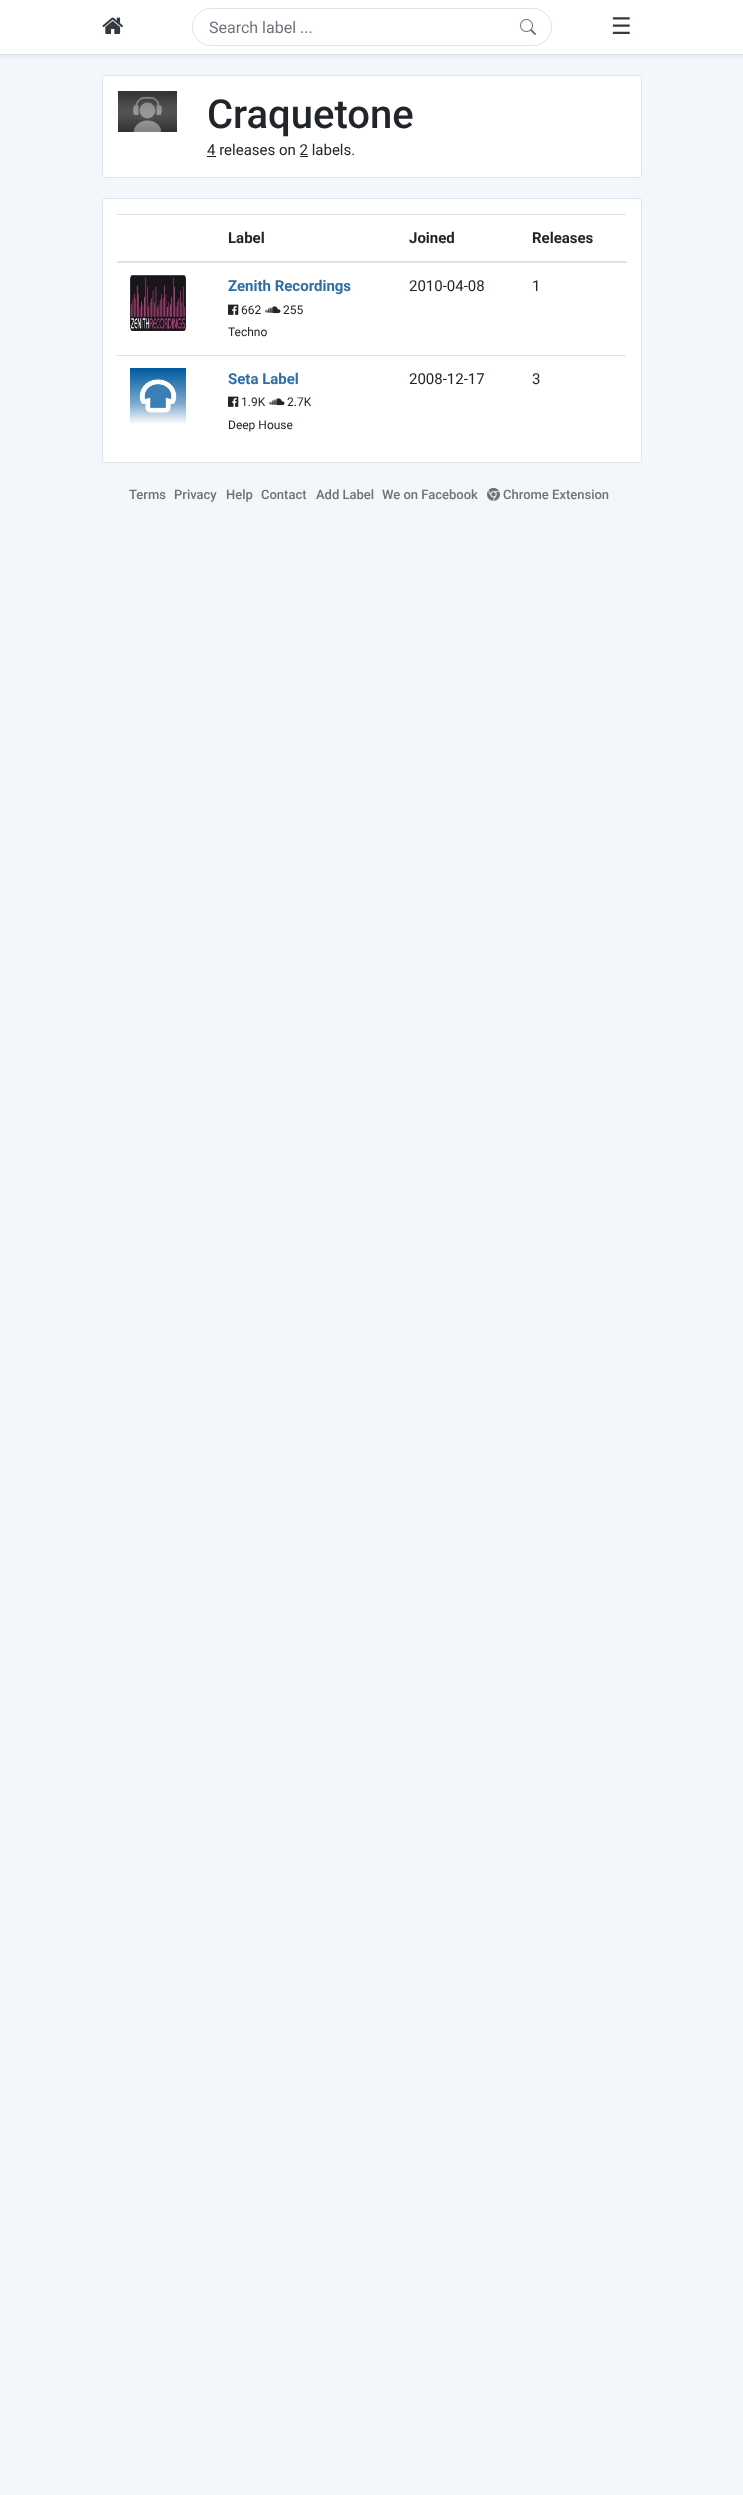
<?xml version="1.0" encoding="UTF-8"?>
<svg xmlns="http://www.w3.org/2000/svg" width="743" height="2495">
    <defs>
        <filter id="blur1" x="-50%" y="-200%" width="200%" height="500%"><feGaussianBlur stdDeviation="2"/></filter>
    </defs>
    <rect width="100%" height="100%" fill="#F3F7FB"/>
    <rect x="0" y="2" width="743" height="55" fill="#000000" fill-opacity="0.07" filter="url(#blur1)"/>
    <rect x="0" y="0" width="743" height="54" fill="#FFFFFF"/>
    <rect x="0" y="54" width="743" height="1" fill="#DEE2E6"/>
    <image x="102" y="17" width="21" height="17" href="img_01.png"/>
    <rect x="192.5" y="8.5" width="359" height="37" rx="18.5" fill="none" stroke="#DEE2E6"/>
    <text x="209" y="33" font-family="Roboto" font-size="16" fill="#6C757D">Search label ...</text>
    <image x="520" y="19" width="16" height="16" href="img_02.png"/>
    <text x="611" y="34" font-family="DejaVu Sans" font-size="23" fill="#343A40">☰</text>
    <rect x="102.5" y="75.5" width="539" height="102" rx="2.5" fill="#FFFFFF" stroke="#E0E6EC"/>
    <image x="118" y="91" width="59" height="41" href="img_03.png"/>
    <text x="207" y="128" font-family="Roboto" font-size="40" font-weight="500" fill="#212529">Craquetone</text>
    <text x="207" y="155" font-family="Roboto" font-size="15" fill="#212529">4 releases on 2 labels.</text>
    <rect x="207" y="156" width="9" height="1" fill="#212529"/>
    <rect x="300" y="156" width="8" height="1" fill="#212529"/>
    <rect x="102.5" y="198.5" width="539" height="264" rx="2.5" fill="#FFFFFF" stroke="#E0E6EC"/>
    <text x="228" y="243" font-family="Roboto" font-size="15" font-weight="700" fill="#212529">Label</text>
    <text x="409" y="243" font-family="Roboto" font-size="15" font-weight="700" fill="#212529">Joined</text>
    <rect x="117" y="214" width="509" height="1" fill="#DEE2E6"/>
    <rect x="117" y="261" width="510" height="2" fill="#DEE2E6"/>
    <text x="532" y="243" font-family="Roboto" font-size="15" font-weight="700" fill="#212529">Releases</text>
    <image x="130" y="275" width="56" height="56" href="img_04.png"/>
    <text x="228" y="291" font-family="Roboto" font-size="15" font-weight="700" fill="#2E6EA5">Zenith Recordings</text>
    <image x="228" y="304" width="11" height="11" href="img_05.png"/>
    <text x="241" y="314" font-family="Roboto" font-size="12" fill="#212529">662</text>
    <image x="265" y="306" width="16" height="8" href="img_06.png"/>
    <text x="283" y="314" font-family="Roboto" font-size="12" fill="#212529">255</text>
    <text x="228" y="336" font-family="Roboto" font-size="12" fill="#212529">Techno</text>
    <text x="409" y="291" font-family="Roboto" font-size="15" fill="#212529">2010-04-08</text>
    <text x="532" y="291" font-family="Roboto" font-size="15" fill="#212529">1</text>
    <image x="130" y="368" width="56" height="56" href="img_07.png"/>
    <text x="228" y="384" font-family="Roboto" font-size="15" font-weight="700" fill="#2E6EA5">Seta Label</text>
    <image x="228" y="396" width="11" height="11" href="img_05.png"/>
    <text x="241" y="406" font-family="Roboto" font-size="12" fill="#212529">1.9K</text>
    <image x="269" y="398" width="16" height="8" href="img_06.png"/>
    <text x="287" y="406" font-family="Roboto" font-size="12" fill="#212529">2.7K</text>
    <text x="228" y="429" font-family="Roboto" font-size="12" fill="#212529">Deep House</text>
    <text x="409" y="384" font-family="Roboto" font-size="15" fill="#212529">2008-12-17</text>
    <rect x="117" y="355" width="509" height="1" fill="#DEE2E6"/>
    <text x="532" y="384" font-family="Roboto" font-size="15" fill="#212529">3</text>
    <text x="129" y="499" font-family="Roboto" font-size="13" font-weight="500" fill="#717171">Terms</text>
    <text x="174" y="499" font-family="Roboto" font-size="13" font-weight="500" fill="#717171">Privacy</text>
    <text x="226" y="499" font-family="Roboto" font-size="13" font-weight="500" fill="#717171">Help</text>
    <text x="261" y="499" font-family="Roboto" font-size="13" font-weight="500" fill="#717171">Contact</text>
    <text x="316" y="499" font-family="Roboto" font-size="13" font-weight="500" fill="#717171">Add Label</text>
    <text x="382" y="499" font-family="Roboto" font-size="13" font-weight="500" fill="#717171">We on Facebook</text>
    <image x="487" y="487" width="13" height="14" href="img_08.png"/>
    <text x="503" y="499" font-family="Roboto" font-size="13" font-weight="500" fill="#717171">Chrome Extension</text>
</svg>
